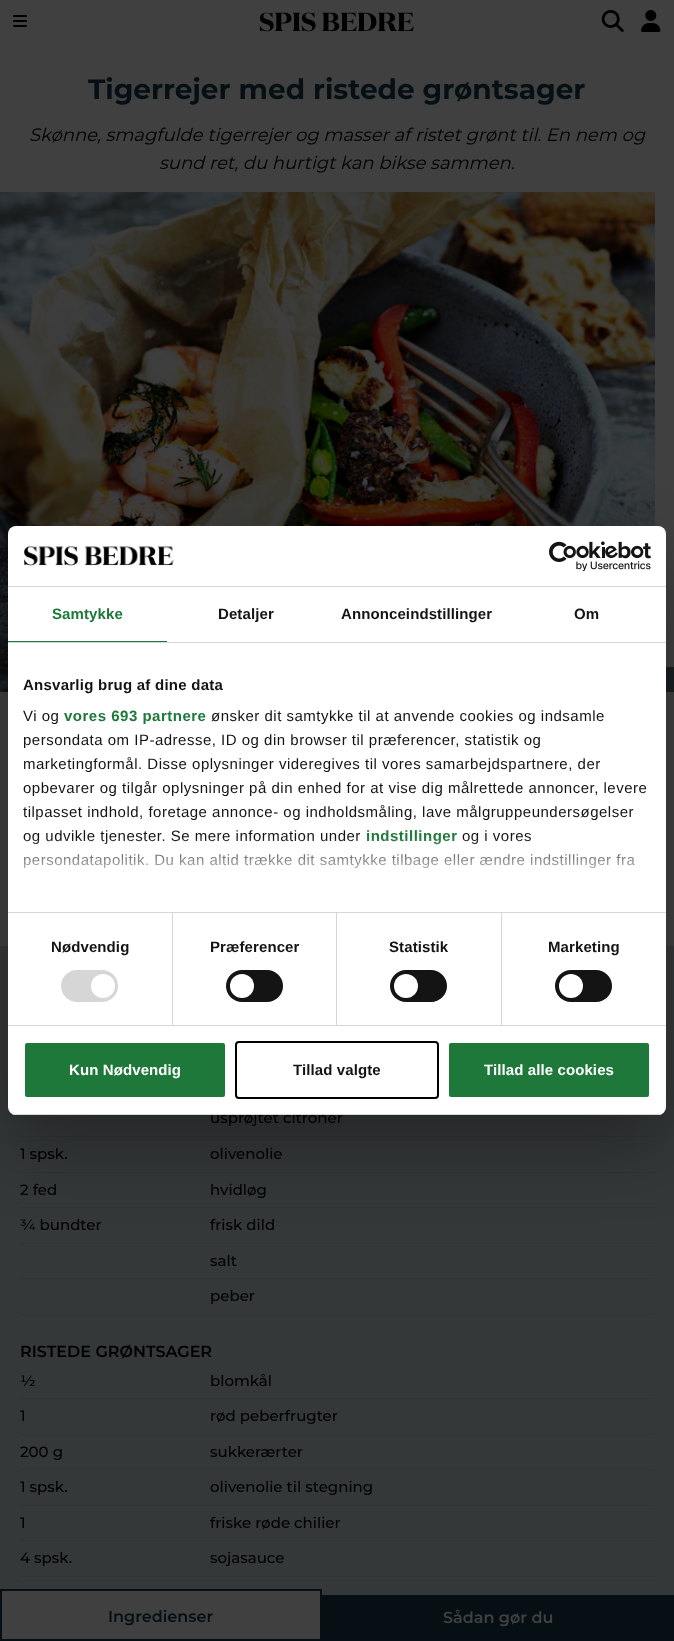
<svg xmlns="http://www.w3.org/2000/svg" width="674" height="1641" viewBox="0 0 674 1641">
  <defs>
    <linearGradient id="g1" gradientUnits="userSpaceOnUse" x1="331" y1="912" x2="331" y2="837"><stop offset="0" stop-color="rgb(255,255,255)"/><stop offset="0.5" stop-color="rgb(255,255,255)" stop-opacity="0.8"/><stop offset="1" stop-color="rgb(255,255,255)" stop-opacity="0"/></linearGradient>
    <clipPath id="clip1"><rect x="8" y="526" width="658" height="589" rx="8"/></clipPath>
  </defs>
  <rect width="100%" height="100%" fill="rgb(64,64,64)"/>
  <image x="13" y="15" width="14" height="12" href="pic1.png"/>
  <text x="259" y="31" font-family="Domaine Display" font-size="26" font-weight="bold" fill="rgb(0,0,0)">SPIS BEDRE</text>
  <image x="601" y="10" width="23" height="22" href="pic2.png"/>
  <image x="641" y="10" width="20" height="22" href="pic3.png"/>
  <text x="88" y="99" font-family="Montserrat" font-size="28" font-weight="bold" fill="rgb(6,16,20)">Tigerrejer med ristede grøntsager</text>
  <g font-family="Montserrat" font-size="18" font-style="italic" fill="rgb(0,0,0)">
    <text x="29" y="141">Skønne, smagfulde tigerrejer og masser af ristet grønt til. En nem og</text>
    <text x="159" y="169">sund ret, du hurtigt kan bikse sammen.</text>
  </g>
  <image x="0" y="192" width="655" height="500" href="pic4.png"/>
  <rect x="666" y="667" width="8" height="25" fill="rgba(20,27,31,0.9)"/>
  <rect x="0" y="946" width="674" height="649" fill="rgb(53,56,57)"/>
  <text x="210" y="1123" font-family="Montserrat" font-size="15" font-weight="500" fill="rgb(0,0,0)">usprøjtet citroner</text>
  <rect x="20" y="1136" width="634" height="1" fill="rgb(48,52,53)"/>
  <g font-family="Montserrat" font-size="15" font-weight="500" fill="rgb(0,0,0)">
    <text x="20" y="1159">1 spsk.</text>
    <text x="210" y="1159">olivenolie</text>
  </g>
  <rect x="20" y="1172" width="634" height="1" fill="rgb(48,52,53)"/>
  <g font-family="Montserrat" font-size="15" font-weight="500" fill="rgb(0,0,0)">
    <text x="20" y="1195">2 fed</text>
    <text x="210" y="1195">hvidløg</text>
  </g>
  <rect x="20" y="1207" width="634" height="1" fill="rgb(48,52,53)"/>
  <g font-family="Montserrat" font-size="15" font-weight="500" fill="rgb(0,0,0)">
    <text x="20" y="1230">¾ bundter</text>
    <text x="210" y="1230">frisk dild</text>
  </g>
  <rect x="20" y="1243" width="634" height="1" fill="rgb(48,52,53)"/>
  <text x="210" y="1266" font-family="Montserrat" font-size="15" font-weight="500" fill="rgb(0,0,0)">salt</text>
  <rect x="20" y="1278" width="634" height="1" fill="rgb(48,52,53)"/>
  <text x="210" y="1301" font-family="Montserrat" font-size="15" font-weight="500" fill="rgb(0,0,0)">peber</text>
  <rect x="20" y="1314" width="634" height="1" fill="rgb(48,52,53)"/>
  <text x="20" y="1357" font-family="Montserrat" font-size="16" font-weight="600" fill="rgb(0,0,0)">RISTEDE GRØNTSAGER</text>
  <g font-family="Montserrat" font-size="15" font-weight="500" fill="rgb(0,0,0)">
    <text x="20" y="1386">½</text>
    <text x="210" y="1386">blomkål</text>
  </g>
  <rect x="20" y="1398" width="634" height="1" fill="rgb(48,52,53)"/>
  <g font-family="Montserrat" font-size="15" font-weight="500" fill="rgb(0,0,0)">
    <text x="20" y="1421">1</text>
    <text x="210" y="1421">rød peberfrugter</text>
  </g>
  <rect x="20" y="1434" width="634" height="1" fill="rgb(48,52,53)"/>
  <g font-family="Montserrat" font-size="15" font-weight="500" fill="rgb(0,0,0)">
    <text x="20" y="1457">200 g</text>
    <text x="210" y="1457">sukkerærter</text>
  </g>
  <rect x="20" y="1469" width="634" height="1" fill="rgb(48,52,53)"/>
  <g font-family="Montserrat" font-size="15" font-weight="500" fill="rgb(0,0,0)">
    <text x="20" y="1492">1 spsk.</text>
    <text x="210" y="1492">olivenolie til stegning</text>
  </g>
  <rect x="20" y="1505" width="634" height="1" fill="rgb(48,52,53)"/>
  <g font-family="Montserrat" font-size="15" font-weight="500" fill="rgb(0,0,0)">
    <text x="20" y="1528">1</text>
    <text x="210" y="1528">friske røde chilier</text>
  </g>
  <rect x="20" y="1540" width="634" height="1" fill="rgb(48,52,53)"/>
  <g font-family="Montserrat" font-size="15" font-weight="500" fill="rgb(0,0,0)">
    <text x="20" y="1563">4 spsk.</text>
    <text x="210" y="1563">sojasauce</text>
  </g>
  <rect x="20" y="1576" width="634" height="1" fill="rgb(48,52,53)"/>
  <rect x="2" y="1591" width="318" height="4" fill="rgb(64,64,64)"/>
  <rect x="1" y="1590" width="320" height="50" fill="none" stroke="rgb(6,16,20)" stroke-width="2"/>
  <text x="108" y="1622" font-family="Montserrat" font-size="16" font-weight="600" fill="rgb(6,16,20)">Ingredienser</text>
  <rect x="322" y="1595" width="352" height="46" fill="rgb(6,16,20)"/>
  <text x="443" y="1623" font-family="Montserrat" font-size="16" font-weight="600" fill="rgb(64,64,64)">Sådan gør du</text>
  <rect x="8" y="558" width="658" height="589" rx="8" fill="rgba(0,0,0,0.3)" filter="blur(34px)"/>
  <rect x="8" y="526" width="658" height="589" rx="8" fill="rgb(255,255,255)"/>
  <rect x="8" y="586" width="658" height="1" fill="rgb(214,214,214)"/>
  <image x="23" y="546" width="151" height="20" href="pic5.png"/>
  <image x="549" y="541" width="102" height="30" href="pic6.png"/>
  <rect x="8" y="642" width="658" height="1" fill="rgb(214,214,214)"/>
  <rect x="8" y="641" width="159" height="1" fill="rgb(29,120,58)"/>
  <text x="52" y="619" font-family="Liberation Sans" font-size="15" font-weight="bold" letter-spacing="0.1" fill="rgb(29,120,58)">Samtykke</text>
  <g font-family="Liberation Sans" font-size="15" font-weight="bold" letter-spacing="0.1" fill="rgb(20,20,20)">
    <text x="218" y="619">Detaljer</text>
    <text x="341" y="619">Annonceindstillinger</text>
    <text x="574" y="619">Om</text>
  </g>
  <rect x="8" y="912" width="658" height="1" fill="rgb(214,214,214)"/>
  <text x="23" y="690" font-family="Liberation Sans" font-size="15" font-weight="bold" letter-spacing="0.25" fill="rgb(20,20,20)">Ansvarlig brug af dine data</text>
  <text x="23" y="721" font-family="Liberation Sans" font-size="15" letter-spacing="0.5" fill="rgb(20,20,20)">Vi og</text>
  <text x="64" y="721" font-family="Liberation Sans" font-size="15" font-weight="bold" letter-spacing="0.5" fill="rgb(29,120,58)">vores 693 partnere</text>
  <g font-family="Liberation Sans" font-size="15" letter-spacing="0.5" fill="rgb(20,20,20)">
    <text x="211" y="721">ønsker dit samtykke til at anvende cookies og indsamle</text>
    <text>
      <tspan x="23" y="745">persondata om IP-adresse, ID og din browser til præferencer, statistik og</tspan>
      <tspan x="23" y="769">marketingformål. Disse oplysninger videregives til vores samarbejdspartnere, der</tspan>
      <tspan x="23" y="793">opbevarer og tilgår oplysninger på din enhed for at vise dig målrettede annoncer, levere</tspan>
      <tspan x="23" y="817">tilpasset indhold, foretage annonce- og indholdsmåling, lave målgruppeundersøgelser</tspan>
      <tspan x="23" y="841">og udvikle tjenester. Se mere information under</tspan>
    </text>
  </g>
  <text x="366" y="841" font-family="Liberation Sans" font-size="15" font-weight="bold" letter-spacing="0.5" fill="rgb(29,120,58)">indstillinger</text>
  <g font-family="Liberation Sans" font-size="15" letter-spacing="0.5" fill="rgb(20,20,20)">
    <text x="462" y="841">og i vores</text>
    <text x="23" y="865">persondatapolitik. Du kan altid trække dit samtykke tilbage eller ændre indstillinger fra</text>
  </g>
  <rect x="24" y="838" width="611" height="31" fill="url(#g1)"/>
  <rect x="8" y="1025" width="658" height="1" fill="rgb(214,214,214)"/>
  <rect x="172" y="913" width="1" height="112" fill="rgb(214,214,214)"/>
  <text x="51" y="952" font-family="Liberation Sans" font-size="15" font-weight="bold" letter-spacing="0.1" fill="rgb(20,20,20)">Nødvendig</text>
  <rect x="61" y="970" width="57" height="32" rx="16" fill="rgb(214,214,214)"/>
  <circle cx="103" cy="986" r="12" fill="rgb(255,255,255)"/>
  <rect x="336" y="913" width="1" height="112" fill="rgb(214,214,214)"/>
  <text x="210" y="952" font-family="Liberation Sans" font-size="15" font-weight="bold" letter-spacing="0.1" fill="rgb(20,20,20)">Præferencer</text>
  <rect x="226" y="970" width="57" height="32" rx="16" fill="rgb(20,20,20)"/>
  <circle cx="242" cy="986" r="12" fill="rgb(255,255,255)"/>
  <rect x="501" y="913" width="1" height="112" fill="rgb(214,214,214)"/>
  <text x="389" y="952" font-family="Liberation Sans" font-size="15" font-weight="bold" letter-spacing="0.1" fill="rgb(20,20,20)">Statistik</text>
  <rect x="390" y="970" width="57" height="32" rx="16" fill="rgb(20,20,20)"/>
  <circle cx="406" cy="986" r="12" fill="rgb(255,255,255)"/>
  <text x="548" y="952" font-family="Liberation Sans" font-size="15" font-weight="bold" letter-spacing="0.1" fill="rgb(20,20,20)">Marketing</text>
  <rect x="555" y="970" width="57" height="32" rx="16" fill="rgb(20,20,20)"/>
  <circle cx="571" cy="986" r="12" fill="rgb(255,255,255)"/>
  <g clip-path="url(#clip1)">
    <rect x="8" y="1114" width="658" height="1" fill="rgb(214,214,214)"/>
  </g>
  <rect x="24" y="1042" width="202" height="56" rx="3" fill="rgb(29,120,58)" stroke="rgb(255,255,255)" stroke-width="2"/>
  <text x="69" y="1075" font-family="Liberation Sans" font-size="15" font-weight="bold" letter-spacing="0.1" fill="rgb(255,255,255)">Kun Nødvendig</text>
  <rect x="236" y="1042" width="202" height="56" rx="3" fill="none" stroke="rgb(0,0,0)" stroke-width="2"/>
  <text x="293" y="1075" font-family="Liberation Sans" font-size="15" font-weight="bold" letter-spacing="0.1" fill="rgb(20,20,20)">Tillad valgte</text>
  <rect x="448" y="1042" width="202" height="56" rx="3" fill="rgb(29,120,58)" stroke="rgb(255,255,255)" stroke-width="2"/>
  <text x="484" y="1075" font-family="Liberation Sans" font-size="15" font-weight="bold" letter-spacing="0.1" fill="rgb(255,255,255)">Tillad alle cookies</text>
</svg>
